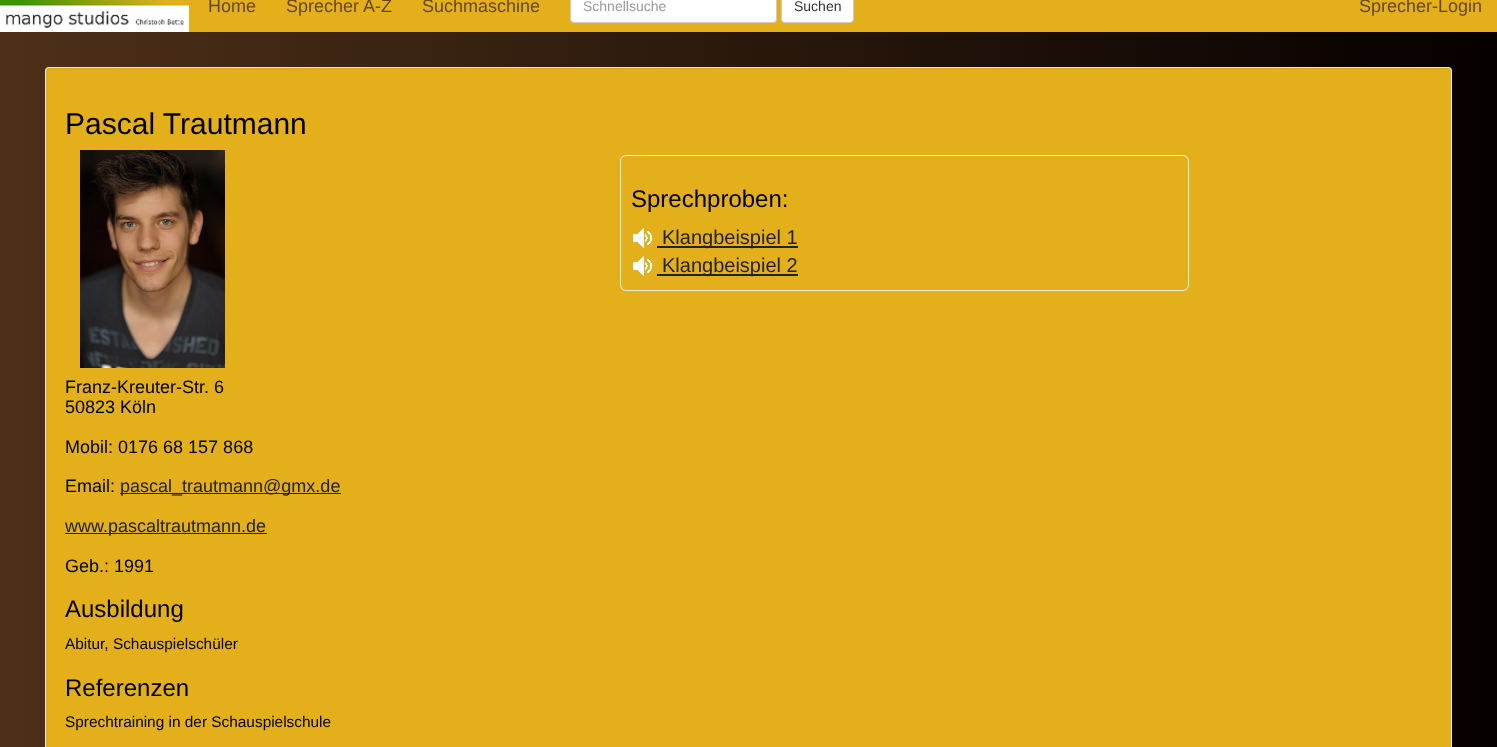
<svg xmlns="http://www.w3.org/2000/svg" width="1497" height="747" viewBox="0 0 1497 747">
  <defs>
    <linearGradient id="g1" gradientUnits="userSpaceOnUse" x1="0" y1="424" x2="1497" y2="424"><stop offset="0" stop-color="rgb(78,48,24)"/><stop offset="1" stop-color="rgb(6,0,0)"/></linearGradient>
  </defs>
  <rect width="100%" height="100%" fill="rgb(255,255,255)"/>
  <rect x="0" y="32" width="1497" height="715" fill="url(#g1)"/>
  <image x="0" y="0" width="189" height="32" href="pic1.png"/>
  <rect x="189" y="0" width="1308" height="32" fill="rgb(227,175,27)"/>
  <g font-family="Liberation Sans" font-size="18" fill="rgb(102,72,24)">
    <text x="208" y="12">Home</text>
    <text x="286" y="12">Sprecher A-Z</text>
    <text x="422" y="12">Suchmaschine</text>
  </g>
  <rect x="570.5" y="-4.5" width="206" height="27" rx="3.5" fill="rgb(255,255,255)" stroke="rgb(204,204,204)"/>
  <text x="583" y="11" font-family="Liberation Sans" font-size="14" fill="rgb(153,153,153)">Schnellsuche</text>
  <rect x="781.5" y="-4.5" width="72" height="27" rx="3.5" fill="rgb(255,255,255)" stroke="rgb(204,204,204)"/>
  <text x="794" y="11" font-family="Liberation Sans" font-size="14" fill="rgb(51,51,51)">Suchen</text>
  <text x="1359" y="12" font-family="Liberation Sans" font-size="18" fill="rgb(102,72,24)">Sprecher-Login</text>
  <rect x="45" y="67" width="1407" height="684" rx="4" fill="rgb(227,175,27)"/>
  <path d="M49 69H1448C1450 69 1451 70 1451 72V71C1451 69 1450 68 1448 68H49C47 68 46 69 46 71V72C46 70 47 69 49 69Z" fill="rgb(216,166,26)"/>
  <rect x="45.5" y="67.5" width="1406" height="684" rx="3.5" fill="none" stroke="rgb(227,227,227)"/>
  <text x="65" y="134" font-family="Liberation Sans" font-size="30" fill="rgb(0,0,0)">Pascal Trautmann</text>
  <image x="80" y="150" width="145" height="218" href="pic2.png"/>
  <rect x="620.5" y="155.5" width="568" height="135" rx="5.5" fill="none" stroke="rgb(238,238,238)"/>
  <text x="631" y="207" font-family="Liberation Sans" font-size="24" fill="rgb(0,0,0)">Sprechproben:</text>
  <image x="633" y="228" width="19" height="20" href="pic3.png"/>
  <rect x="657" y="246" width="141" height="2" fill="rgb(34,34,34)"/>
  <text x="662" y="244" font-family="Liberation Sans" font-size="20" fill="rgb(34,34,34)">Klangbeispiel 1</text>
  <image x="633" y="256" width="19" height="20" href="pic3.png"/>
  <rect x="657" y="274" width="141" height="2" fill="rgb(34,34,34)"/>
  <text x="662" y="272" font-family="Liberation Sans" font-size="20" fill="rgb(34,34,34)">Klangbeispiel 2</text>
  <g font-family="Liberation Sans" font-size="18" fill="rgb(0,0,0)">
    <text>
      <tspan x="65" y="393">Franz-Kreuter-Str. 6</tspan>
      <tspan x="65" y="413">50823 Köln</tspan>
    </text>
    <text x="65" y="453">Mobil: 0176 68 157 868</text>
    <text x="65" y="492">Email:</text>
  </g>
  <rect x="120" y="493" width="221" height="1" fill="rgb(34,34,34)"/>
  <text x="120" y="492" font-family="Liberation Sans" font-size="18" fill="rgb(34,34,34)">pascal_trautmann@gmx.de</text>
  <rect x="65" y="533" width="202" height="1" fill="rgb(34,34,34)"/>
  <text x="65" y="532" font-family="Liberation Sans" font-size="18" fill="rgb(34,34,34)">www.pascaltrautmann.de</text>
  <text x="65" y="572" font-family="Liberation Sans" font-size="18" fill="rgb(0,0,0)">Geb.: 1991</text>
  <text x="65" y="617" font-family="Liberation Sans" font-size="24" fill="rgb(0,0,0)">Ausbildung</text>
  <text x="65" y="649" font-family="Liberation Sans" font-size="15.4" fill="rgb(0,0,0)">Abitur, Schauspielschüler</text>
  <text x="65" y="696" font-family="Liberation Sans" font-size="24" fill="rgb(0,0,0)">Referenzen</text>
  <text x="65" y="727" font-family="Liberation Sans" font-size="15.4" fill="rgb(0,0,0)">Sprechtraining in der Schauspielschule</text>
</svg>
